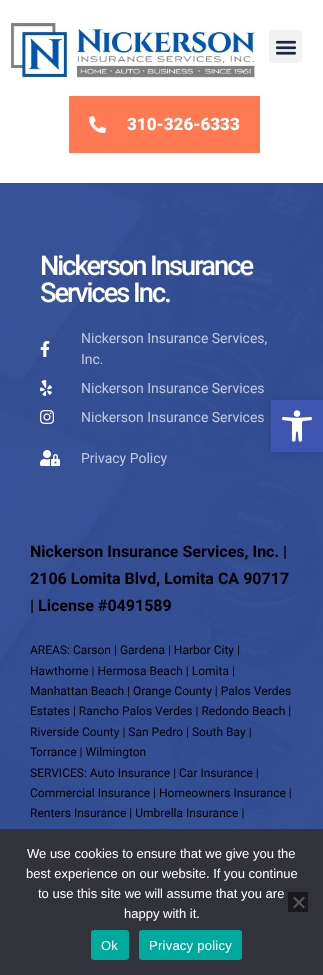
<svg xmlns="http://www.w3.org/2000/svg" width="323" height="975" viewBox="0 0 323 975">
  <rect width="100%" height="100%" fill="rgb(255,255,255)"/>
  <image x="10" y="23" width="246" height="55" href="pic1.png"/>
  <rect x="269" y="30" width="33" height="33" rx="3" fill="rgb(242,242,242)"/>
  <image x="275" y="40" width="22" height="15" href="pic2.png"/>
  <rect x="69" y="96" width="191" height="57" fill="rgb(255,122,83)"/>
  <image x="89" y="116" width="17" height="18" href="pic3.png"/>
  <text x="127" y="130" font-family="Heebo" font-size="17" font-weight="800" fill="rgb(255,255,255)">310-326-6333</text>
  <image x="0" y="183" width="323" height="646" href="pic4.png"/>
  <g font-family="Roboto" font-size="27.25" font-weight="500" letter-spacing="-2" fill="rgb(255,255,255)">
    <text>
      <tspan x="40" y="275">Nickerson Insurance</tspan>
      <tspan x="40" y="302">Services Inc.</tspan>
    </text>
  </g>
  <image x="40" y="341" width="10" height="16" href="pic5.png"/>
  <g font-family="Roboto" font-size="14" fill="rgb(194,202,223)">
    <text>
      <tspan x="81" y="343">Nickerson Insurance Services,</tspan>
      <tspan x="81" y="364">Inc.</tspan>
    </text>
  </g>
  <image x="40" y="380" width="12" height="16" href="pic6.png"/>
  <text x="81" y="393" font-family="Roboto" font-size="14" fill="rgb(194,202,223)">Nickerson Insurance Services</text>
  <image x="40" y="410" width="14" height="14" href="pic7.png"/>
  <text x="81" y="422" font-family="Roboto" font-size="14" fill="rgb(194,202,223)">Nickerson Insurance Services</text>
  <image x="40" y="450" width="20" height="16" href="pic8.png"/>
  <text x="81" y="463" font-family="Roboto" font-size="14" fill="rgb(194,202,223)">Privacy Policy</text>
  <g font-family="Heebo" font-size="16" font-weight="bold" fill="rgb(0,0,0)">
    <text>
      <tspan x="30" y="557">Nickerson Insurance Services, Inc. |</tspan>
      <tspan x="30" y="584">2106 Lomita Blvd, Lomita CA 90717</tspan>
      <tspan x="30" y="611">| License #0491589</tspan>
    </text>
  </g>
  <g font-family="Heebo" font-size="12" fill="rgb(0,0,0)">
    <text>
      <tspan x="30" y="654">AREAS: Carson | Gardena | Harbor City |</tspan>
      <tspan x="30" y="675">Hawthorne | Hermosa Beach | Lomita |</tspan>
      <tspan x="30" y="695">Manhattan Beach | Orange County | Palos Verdes</tspan>
      <tspan x="30" y="715">Estates | Rancho Palos Verdes | Redondo Beach |</tspan>
      <tspan x="30" y="736">Riverside County | San Pedro | South Bay |</tspan>
      <tspan x="30" y="756">Torrance | Wilmington</tspan>
      <tspan x="30" y="777">SERVICES: Auto Insurance | Car Insurance |</tspan>
      <tspan x="30" y="797">Commercial Insurance | Homeowners Insurance |</tspan>
      <tspan x="30" y="817">Renters Insurance | Umbrella Insurance |</tspan>
    </text>
  </g>
  <rect x="271" y="400" width="52" height="52" fill="rgba(0,0,0,0.1)" filter="blur(5px)"/>
  <rect x="271" y="400" width="52" height="52" fill="rgb(64,84,178)"/>
  <image x="282" y="410" width="30" height="32" href="pic9.png"/>
  <rect x="0" y="829" width="323" height="146" fill="rgb(50,50,58)"/>
  <g font-family="Liberation Sans" font-size="13" fill="rgb(255,255,255)">
    <text x="27" y="858">We use cookies to ensure that we give you the</text>
    <text x="26" y="878">best experience on our website. If you continue</text>
    <text x="38" y="898">to use this site we will assume that you are</text>
    <text x="124" y="918">happy with it.</text>
  </g>
  <rect x="288" y="892" width="20" height="20" fill="rgb(25,25,29)"/>
  <path d="M303.5 896.5L305 898L294.5 908.5L293 907Z" fill="rgb(89,89,93)"/>
  <path d="M293 898L294.5 896.5L305 907L303.5 908.5Z" fill="rgb(89,89,93)"/>
  <rect x="91" y="930" width="38" height="30" rx="3" fill="rgb(0,169,157)"/>
  <text x="101" y="950" font-family="Liberation Sans" font-size="13" letter-spacing="0.25" fill="rgb(255,255,255)">Ok</text>
  <rect x="139" y="930" width="103" height="30" rx="3" fill="rgb(0,169,157)"/>
  <text x="149" y="950" font-family="Liberation Sans" font-size="13" letter-spacing="0.25" fill="rgb(255,255,255)">Privacy policy</text>
</svg>
